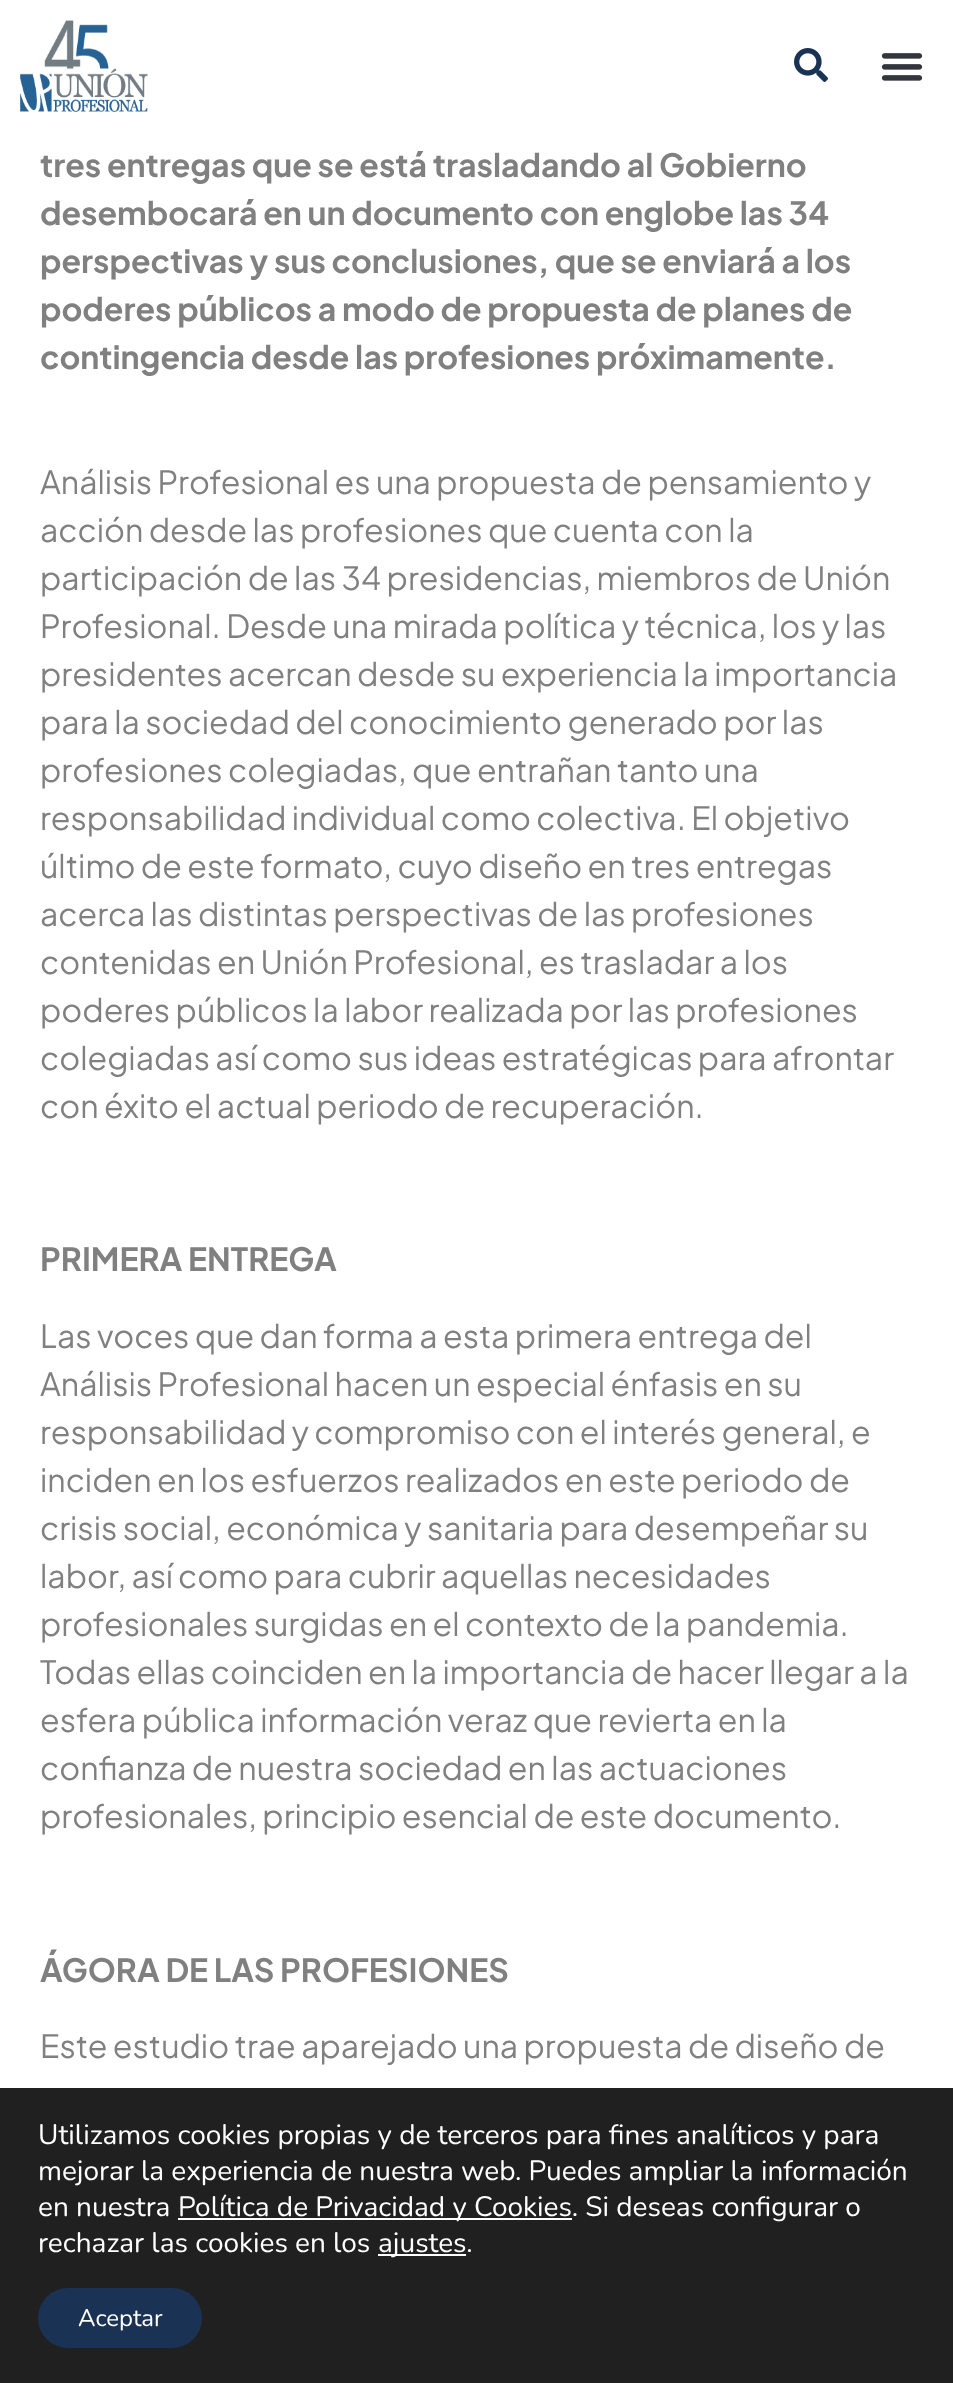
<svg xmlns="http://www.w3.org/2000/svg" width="953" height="2383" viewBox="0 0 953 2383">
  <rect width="100%" height="100%" fill="rgb(255,255,255)"/>
  <image x="20" y="20" width="128" height="92" href="pic1.png"/>
  <image x="794" y="48" width="34" height="34" href="pic2.png"/>
  <image x="881" y="53" width="42" height="28" href="pic3.png"/>
  <g font-family="Plus Jakarta Sans" font-size="32" font-weight="bold" fill="rgb(128,128,128)">
    <text>
      <tspan x="40" y="177">tres entregas que se está trasladando al Gobierno</tspan>
      <tspan x="40" y="225">desembocará en un documento con englobe las 34</tspan>
      <tspan x="40" y="273">perspectivas y sus conclusiones, que se enviará a los</tspan>
      <tspan x="40" y="321">poderes públicos a modo de propuesta de planes de</tspan>
      <tspan x="40" y="369">contingencia desde las profesiones próximamente.</tspan>
    </text>
  </g>
  <g font-family="Plus Jakarta Sans" font-size="32" fill="rgb(128,128,128)">
    <text>
      <tspan x="40" y="494">Análisis Profesional es una propuesta de pensamiento y</tspan>
      <tspan x="40" y="542">acción desde las profesiones que cuenta con la</tspan>
      <tspan x="40" y="590">participación de las 34 presidencias, miembros de Unión</tspan>
      <tspan x="40" y="638">Profesional. Desde una mirada política y técnica, los y las</tspan>
      <tspan x="40" y="686">presidentes acercan desde su experiencia la importancia</tspan>
      <tspan x="40" y="734">para la sociedad del conocimiento generado por las</tspan>
      <tspan x="40" y="782">profesiones colegiadas, que entrañan tanto una</tspan>
      <tspan x="40" y="830">responsabilidad individual como colectiva. El objetivo</tspan>
      <tspan x="40" y="878">último de este formato, cuyo diseño en tres entregas</tspan>
      <tspan x="40" y="926">acerca las distintas perspectivas de las profesiones</tspan>
      <tspan x="40" y="974">contenidas en Unión Profesional, es trasladar a los</tspan>
      <tspan x="40" y="1022">poderes públicos la labor realizada por las profesiones</tspan>
      <tspan x="40" y="1070">colegiadas así como sus ideas estratégicas para afrontar</tspan>
      <tspan x="40" y="1118">con éxito el actual periodo de recuperación.</tspan>
    </text>
  </g>
  <text x="40" y="1271" font-family="Plus Jakarta Sans" font-size="32" font-weight="bold" fill="rgb(128,128,128)">PRIMERA ENTREGA</text>
  <g font-family="Plus Jakarta Sans" font-size="32" fill="rgb(128,128,128)">
    <text>
      <tspan x="40" y="1348">Las voces que dan forma a esta primera entrega del</tspan>
      <tspan x="40" y="1396">Análisis Profesional hacen un especial énfasis en su</tspan>
      <tspan x="40" y="1444">responsabilidad y compromiso con el interés general, e</tspan>
      <tspan x="40" y="1492">inciden en los esfuerzos realizados en este periodo de</tspan>
      <tspan x="40" y="1540">crisis social, económica y sanitaria para desempeñar su</tspan>
      <tspan x="40" y="1588">labor, así como para cubrir aquellas necesidades</tspan>
      <tspan x="40" y="1636">profesionales surgidas en el contexto de la pandemia.</tspan>
      <tspan x="40" y="1684">Todas ellas coinciden en la importancia de hacer llegar a la</tspan>
      <tspan x="40" y="1732">esfera pública información veraz que revierta en la</tspan>
      <tspan x="40" y="1780">confianza de nuestra sociedad en las actuaciones</tspan>
      <tspan x="40" y="1828">profesionales, principio esencial de este documento.</tspan>
    </text>
  </g>
  <text x="40" y="1982" font-family="Plus Jakarta Sans" font-size="32" font-weight="bold" fill="rgb(128,128,128)">ÁGORA DE LAS PROFESIONES</text>
  <text x="40" y="2058" font-family="Plus Jakarta Sans" font-size="32" fill="rgb(128,128,128)">Este estudio trae aparejado una propuesta de diseño de</text>
  <rect x="0" y="2088" width="953" height="295" fill="rgb(32,32,32)"/>
  <g font-family="Nunito" font-size="28" fill="rgb(255,255,255)">
    <text>
      <tspan x="38" y="2144">Utilizamos cookies propias y de terceros para fines analíticos y para</tspan>
      <tspan x="38" y="2180">mejorar la experiencia de nuestra web. Puedes ampliar la información</tspan>
      <tspan x="38" y="2216">en nuestra</tspan>
    </text>
  </g>
  <rect x="178" y="2218" width="394" height="2" fill="rgb(255,255,255)"/>
  <g font-family="Nunito" font-size="28" fill="rgb(255,255,255)">
    <text x="178" y="2216">Política de Privacidad y Cookies. Si deseas configurar o</text>
    <text x="38" y="2252">rechazar las cookies en los</text>
  </g>
  <rect x="378" y="2254" width="88" height="2" fill="rgb(255,255,255)"/>
  <text x="378" y="2252" font-family="Nunito" font-size="28" fill="rgb(255,255,255)">ajustes.</text>
  <rect x="38" y="2288" width="164" height="60" rx="30" fill="rgb(26,50,84)"/>
  <text x="78" y="2326" font-family="Nunito" font-size="24" fill="rgb(255,255,255)">Aceptar</text>
</svg>
